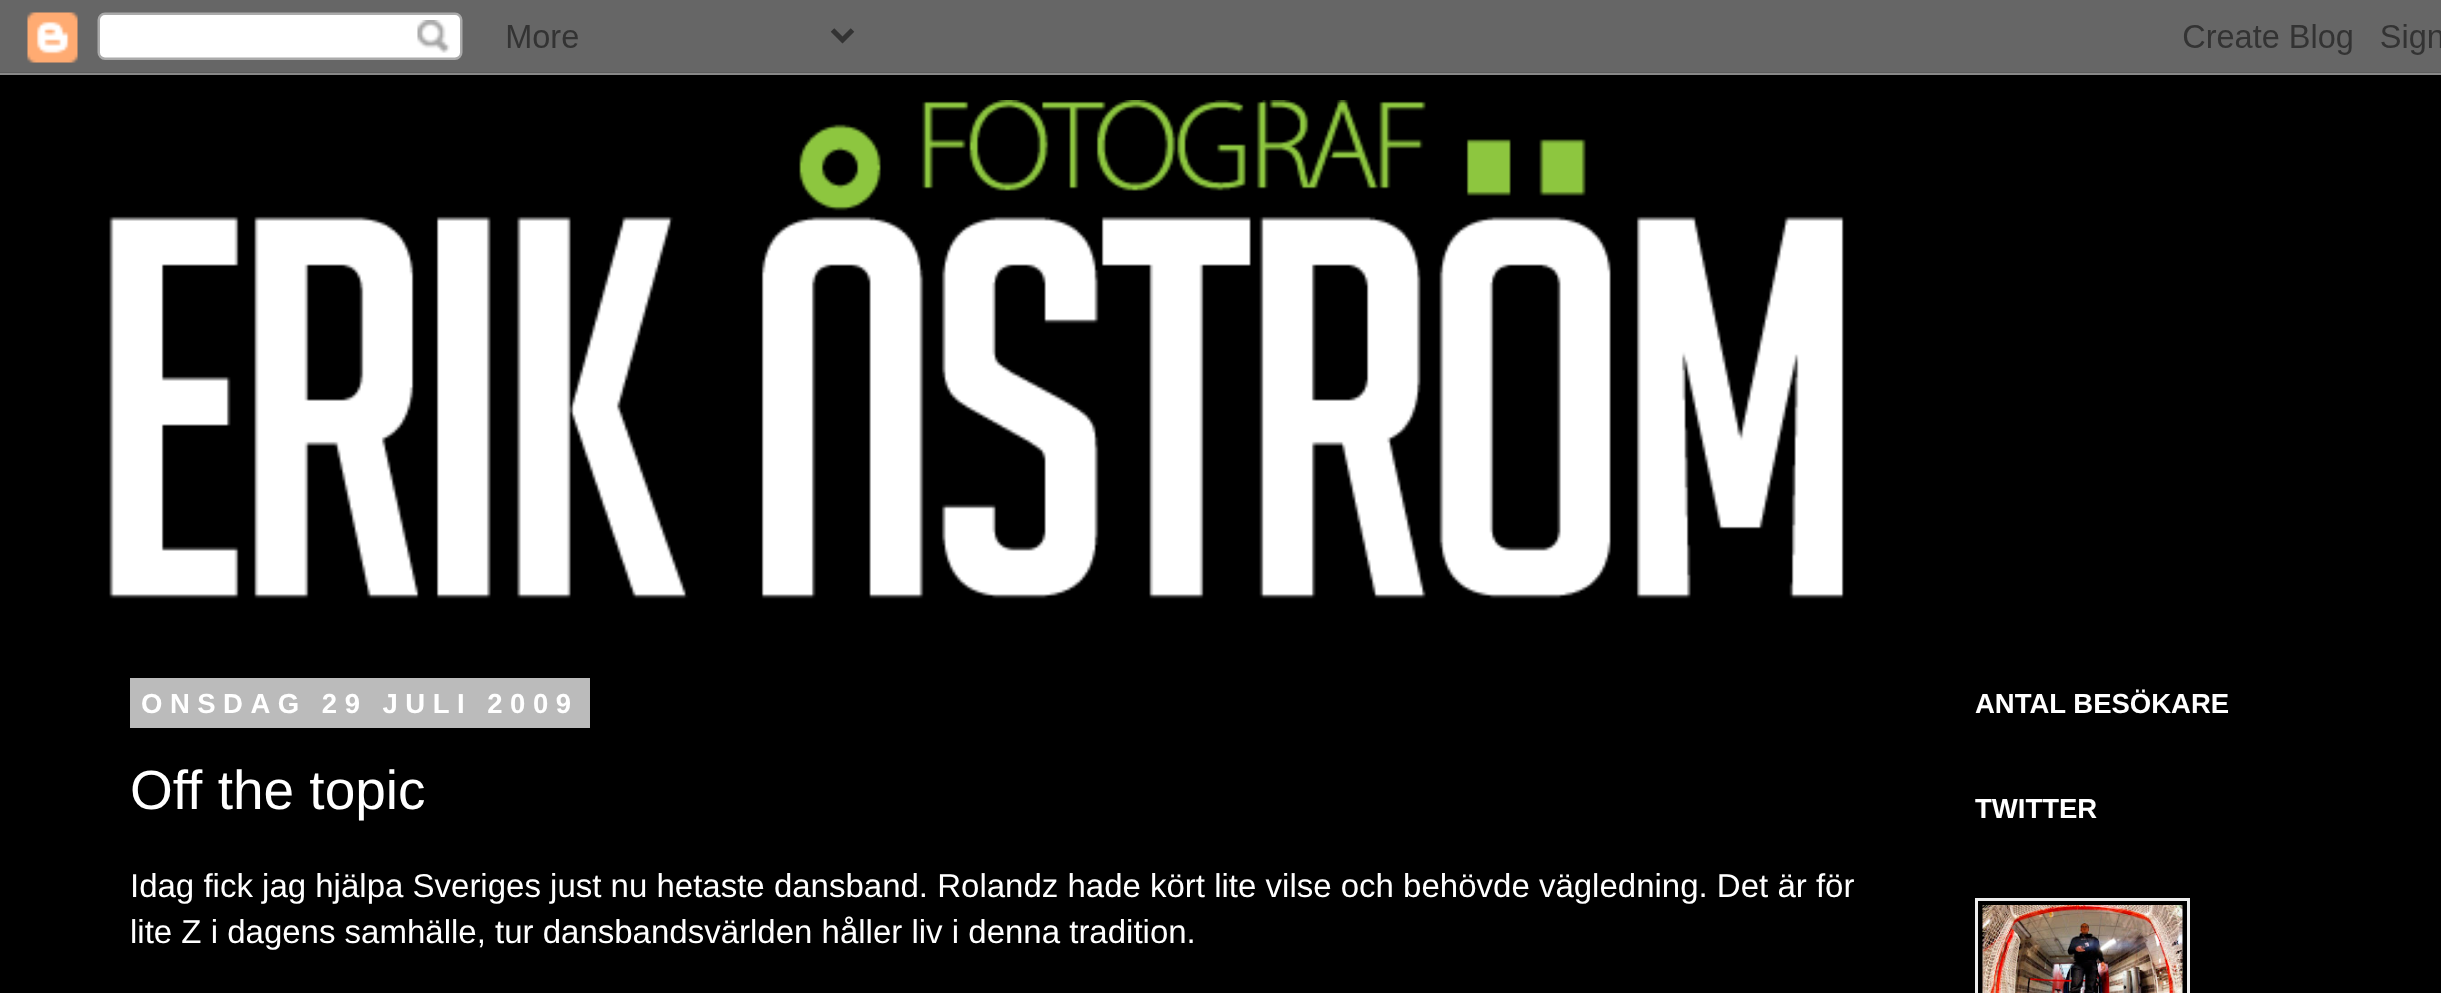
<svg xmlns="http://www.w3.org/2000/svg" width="2441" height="993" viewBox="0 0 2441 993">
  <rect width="100%" height="100%" fill="rgb(0,0,0)"/>
  <image x="0" y="0" width="2441" height="75" href="pic1.png"/>
  <image x="109" y="100" width="1735" height="499" href="pic2.png"/>
  <rect x="130" y="678" width="460" height="50" fill="rgb(187,187,187)"/>
  <text x="141" y="713" font-family="Liberation Sans" font-size="27.5" font-weight="bold" letter-spacing="7.5" fill="rgb(255,255,255)">ONSDAG 29 JULI 2009</text>
  <text x="130" y="809" font-family="Liberation Sans" font-size="55" fill="rgb(255,255,255)">Off the topic</text>
  <g font-family="Liberation Sans" font-size="33" fill="rgb(255,255,255)">
    <text>
      <tspan x="130" y="897">Idag fick jag hjälpa Sveriges just nu hetaste dansband. Rolandz hade kört lite vilse och behövde vägledning. Det är för</tspan>
      <tspan x="130" y="943">lite Z i dagens samhälle, tur dansbandsvärlden håller liv i denna tradition.</tspan>
    </text>
  </g>
  <g font-family="Liberation Sans" font-size="27.5" font-weight="bold" fill="rgb(255,255,255)">
    <text x="1975" y="713">ANTAL BESÖKARE</text>
    <text x="1975" y="818">TWITTER</text>
  </g>
  <rect x="1976.5" y="899.5" width="212" height="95" fill="none" stroke="rgb(238,238,238)" stroke-width="3"/>
  <image x="1982" y="905" width="201" height="88" href="pic3.png"/>
</svg>
